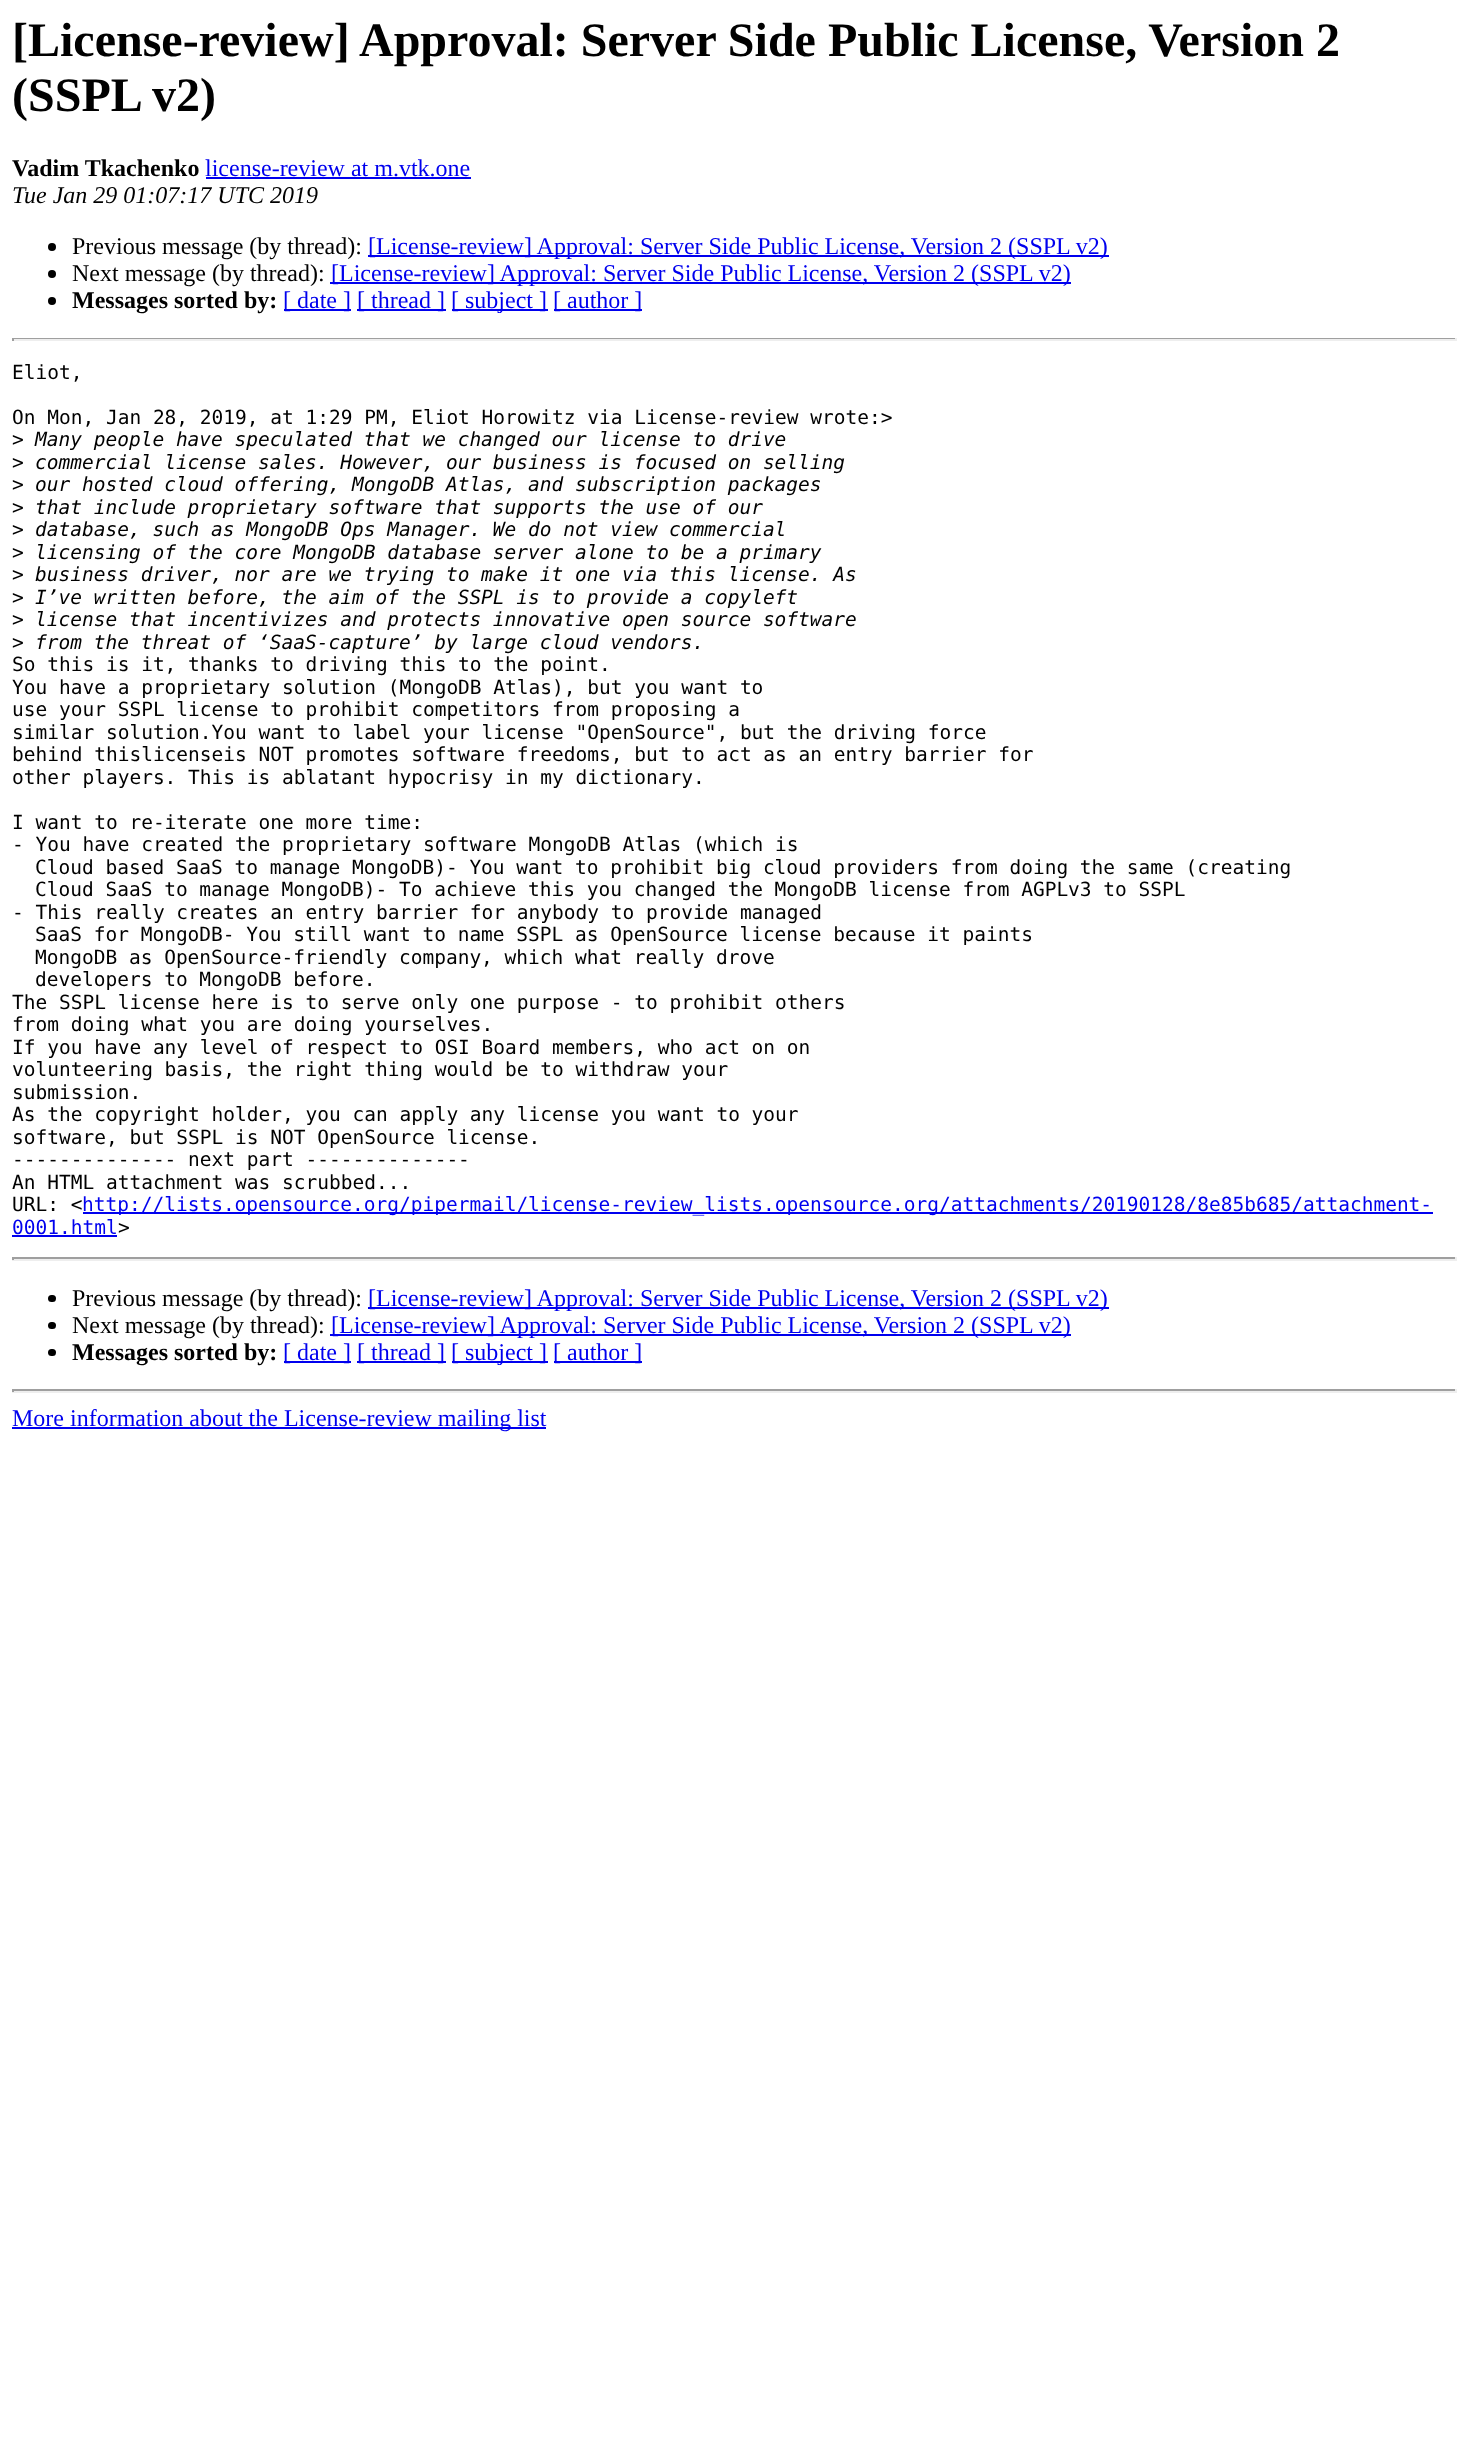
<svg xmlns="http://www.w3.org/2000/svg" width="1468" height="2451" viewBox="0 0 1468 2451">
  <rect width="100%" height="100%" fill="rgb(255,255,255)"/>
  <g font-family="Liberation Serif" font-size="48" font-weight="bold" fill="rgb(0,0,0)">
    <text>
      <tspan x="12" y="56">[License-review] Approval: Server Side Public License, Version 2</tspan>
      <tspan x="12" y="111">(SSPL v2)</tspan>
    </text>
  </g>
  <text x="12" y="176" font-family="Liberation Serif" font-size="24" font-weight="bold" fill="rgb(0,0,0)">Vadim Tkachenko</text>
  <text x="205" y="176" font-family="Liberation Serif" font-size="24" fill="rgb(0,0,238)">license-review at m.vtk.one</text>
  <rect x="206" y="177" width="265" height="2" fill="rgb(0,0,238)"/>
  <text x="12" y="203" font-family="Liberation Serif" font-size="24" font-style="italic" fill="rgb(0,0,0)">Tue Jan 29 01:07:17 UTC 2019</text>
  <circle cx="52" cy="247" r="4" fill="rgb(0,0,0)"/>
  <text x="72" y="254" font-family="Liberation Serif" font-size="24" fill="rgb(0,0,0)">Previous message (by thread):</text>
  <rect x="368" y="255" width="741" height="2" fill="rgb(0,0,238)"/>
  <text x="368" y="254" font-family="Liberation Serif" font-size="24" fill="rgb(0,0,238)">[License-review] Approval: Server Side Public License, Version 2 (SSPL v2)</text>
  <circle cx="52" cy="274" r="4" fill="rgb(0,0,0)"/>
  <text x="72" y="281" font-family="Liberation Serif" font-size="24" fill="rgb(0,0,0)">Next message (by thread):</text>
  <rect x="330" y="282" width="741" height="2" fill="rgb(0,0,238)"/>
  <text x="331" y="281" font-family="Liberation Serif" font-size="24" fill="rgb(0,0,238)">[License-review] Approval: Server Side Public License, Version 2 (SSPL v2)</text>
  <circle cx="52" cy="301" r="4" fill="rgb(0,0,0)"/>
  <text x="72" y="308" font-family="Liberation Serif" font-size="24" font-weight="bold" fill="rgb(0,0,0)">Messages sorted by:</text>
  <rect x="284" y="309" width="67" height="2" fill="rgb(0,0,238)"/>
  <text x="283" y="308" font-family="Liberation Serif" font-size="24" fill="rgb(0,0,238)">[ date ]</text>
  <rect x="357" y="309" width="89" height="2" fill="rgb(0,0,238)"/>
  <text x="357" y="308" font-family="Liberation Serif" font-size="24" fill="rgb(0,0,238)">[ thread ]</text>
  <rect x="452" y="309" width="96" height="2" fill="rgb(0,0,238)"/>
  <text x="451" y="308" font-family="Liberation Serif" font-size="24" fill="rgb(0,0,238)">[ subject ]</text>
  <rect x="554" y="309" width="88" height="2" fill="rgb(0,0,238)"/>
  <text x="553" y="308" font-family="Liberation Serif" font-size="24" fill="rgb(0,0,238)">[ author ]</text>
  <rect x="12" y="338" width="1445" height="1" fill="rgb(159,159,159)"/>
  <rect x="1455" y="338" width="2" height="3" fill="rgb(238,238,238)"/>
  <rect x="12" y="339" width="1445" height="2" fill="rgb(238,238,238)"/>
  <rect x="12" y="338" width="2" height="3" fill="rgb(159,159,159)"/>
  <g font-family="DejaVu Sans Mono" font-size="19.5" fill="rgb(0,0,0)">
    <text x="12" y="379">Eliot,</text>
    <text>
      <tspan x="12" y="424">On Mon, Jan 28, 2019, at 1:29 PM, Eliot Horowitz via License-review wrote:&gt;</tspan>
      <tspan x="12" y="446">&gt;</tspan>
    </text>
  </g>
  <text x="35" y="446" font-family="DejaVu Sans Mono" font-size="19.5" font-style="italic" fill="rgb(0,0,0)">Many people have speculated that we changed our license to drive</text>
  <text x="12" y="469" font-family="DejaVu Sans Mono" font-size="19.5" fill="rgb(0,0,0)">&gt;</text>
  <text x="35" y="469" font-family="DejaVu Sans Mono" font-size="19.5" font-style="italic" fill="rgb(0,0,0)">commercial license sales. However, our business is focused on selling</text>
  <text x="12" y="491" font-family="DejaVu Sans Mono" font-size="19.5" fill="rgb(0,0,0)">&gt;</text>
  <text x="35" y="491" font-family="DejaVu Sans Mono" font-size="19.5" font-style="italic" fill="rgb(0,0,0)">our hosted cloud offering, MongoDB Atlas, and subscription packages</text>
  <text x="12" y="514" font-family="DejaVu Sans Mono" font-size="19.5" fill="rgb(0,0,0)">&gt;</text>
  <text x="35" y="514" font-family="DejaVu Sans Mono" font-size="19.5" font-style="italic" fill="rgb(0,0,0)">that include proprietary software that supports the use of our</text>
  <text x="12" y="536" font-family="DejaVu Sans Mono" font-size="19.5" fill="rgb(0,0,0)">&gt;</text>
  <text x="35" y="536" font-family="DejaVu Sans Mono" font-size="19.5" font-style="italic" fill="rgb(0,0,0)">database, such as MongoDB Ops Manager. We do not view commercial</text>
  <text x="12" y="559" font-family="DejaVu Sans Mono" font-size="19.5" fill="rgb(0,0,0)">&gt;</text>
  <text x="35" y="559" font-family="DejaVu Sans Mono" font-size="19.5" font-style="italic" fill="rgb(0,0,0)">licensing of the core MongoDB database server alone to be a primary</text>
  <text x="12" y="581" font-family="DejaVu Sans Mono" font-size="19.5" fill="rgb(0,0,0)">&gt;</text>
  <text x="35" y="581" font-family="DejaVu Sans Mono" font-size="19.5" font-style="italic" fill="rgb(0,0,0)">business driver, nor are we trying to make it one via this license. As</text>
  <text x="12" y="604" font-family="DejaVu Sans Mono" font-size="19.5" fill="rgb(0,0,0)">&gt;</text>
  <text x="35" y="604" font-family="DejaVu Sans Mono" font-size="19.5" font-style="italic" fill="rgb(0,0,0)">I’ve written before, the aim of the SSPL is to provide a copyleft</text>
  <text x="12" y="626" font-family="DejaVu Sans Mono" font-size="19.5" fill="rgb(0,0,0)">&gt;</text>
  <text x="35" y="626" font-family="DejaVu Sans Mono" font-size="19.5" font-style="italic" fill="rgb(0,0,0)">license that incentivizes and protects innovative open source software</text>
  <text x="12" y="649" font-family="DejaVu Sans Mono" font-size="19.5" fill="rgb(0,0,0)">&gt;</text>
  <text x="35" y="649" font-family="DejaVu Sans Mono" font-size="19.5" font-style="italic" fill="rgb(0,0,0)">from the threat of ‘SaaS-capture’ by large cloud vendors.</text>
  <g font-family="DejaVu Sans Mono" font-size="19.5" fill="rgb(0,0,0)">
    <text>
      <tspan x="12" y="671">So this is it, thanks to driving this to the point.</tspan>
      <tspan x="12" y="694">You have a proprietary solution (MongoDB Atlas), but you want to</tspan>
      <tspan x="12" y="716">use your SSPL license to prohibit competitors from proposing a</tspan>
      <tspan x="12" y="739">similar solution.You want to label your license "OpenSource", but the driving force</tspan>
      <tspan x="12" y="761">behind thislicenseis NOT promotes software freedoms, but to act as an entry barrier for</tspan>
      <tspan x="12" y="784">other players. This is ablatant hypocrisy in my dictionary.</tspan>
    </text>
    <text>
      <tspan x="12" y="829">I want to re-iterate one more time:</tspan>
      <tspan x="12" y="851">- You have created the proprietary software MongoDB Atlas (which is</tspan>
    </text>
    <text>
      <tspan x="35" y="874">Cloud based SaaS to manage MongoDB)- You want to prohibit big cloud providers from doing the same (creating</tspan>
      <tspan x="35" y="896">Cloud SaaS to manage MongoDB)- To achieve this you changed the MongoDB license from AGPLv3 to SSPL</tspan>
    </text>
    <text x="12" y="919">- This really creates an entry barrier for anybody to provide managed</text>
    <text>
      <tspan x="35" y="941">SaaS for MongoDB- You still want to name SSPL as OpenSource license because it paints</tspan>
      <tspan x="35" y="964">MongoDB as OpenSource-friendly company, which what really drove</tspan>
      <tspan x="35" y="986">developers to MongoDB before.</tspan>
    </text>
    <text>
      <tspan x="12" y="1009">The SSPL license here is to serve only one purpose - to prohibit others</tspan>
      <tspan x="12" y="1031">from doing what you are doing yourselves.</tspan>
      <tspan x="12" y="1054">If you have any level of respect to OSI Board members, who act on on</tspan>
      <tspan x="12" y="1076">volunteering basis, the right thing would be to withdraw your</tspan>
      <tspan x="12" y="1099">submission.</tspan>
      <tspan x="12" y="1121">As the copyright holder, you can apply any license you want to your</tspan>
      <tspan x="12" y="1144">software, but SSPL is NOT OpenSource license.</tspan>
      <tspan x="12" y="1166">-------------- next part --------------</tspan>
      <tspan x="12" y="1189">An HTML attachment was scrubbed...</tspan>
      <tspan x="12" y="1211">URL: &lt;</tspan>
    </text>
  </g>
  <rect x="83" y="1212" width="1350" height="2" fill="rgb(0,0,238)"/>
  <g font-family="DejaVu Sans Mono" font-size="19.5" fill="rgb(0,0,238)">
    <text x="82" y="1211">http://lists.opensource.org/pipermail/license-review_lists.opensource.org/attachments/20190128/8e85b685/attachment-</text>
    <text x="12" y="1234">0001.html</text>
  </g>
  <rect x="12" y="1235" width="105" height="2" fill="rgb(0,0,238)"/>
  <text x="118" y="1234" font-family="DejaVu Sans Mono" font-size="19.5" fill="rgb(0,0,0)">&gt;</text>
  <rect x="12" y="1257" width="1445" height="2" fill="rgb(159,159,159)"/>
  <rect x="1455" y="1257" width="2" height="3" fill="rgb(238,238,238)"/>
  <rect x="12" y="1259" width="1445" height="2" fill="rgb(238,238,238)"/>
  <rect x="12" y="1257" width="2" height="3" fill="rgb(159,159,159)"/>
  <rect x="48" y="1295" width="8" height="7" rx="3.5" fill="rgb(0,0,0)"/>
  <text x="72" y="1306" font-family="Liberation Serif" font-size="24" fill="rgb(0,0,0)">Previous message (by thread):</text>
  <rect x="368" y="1307" width="741" height="2" fill="rgb(0,0,238)"/>
  <text x="368" y="1306" font-family="Liberation Serif" font-size="24" fill="rgb(0,0,238)">[License-review] Approval: Server Side Public License, Version 2 (SSPL v2)</text>
  <rect x="48" y="1322" width="8" height="7" rx="3.5" fill="rgb(0,0,0)"/>
  <text x="72" y="1333" font-family="Liberation Serif" font-size="24" fill="rgb(0,0,0)">Next message (by thread):</text>
  <rect x="330" y="1334" width="741" height="2" fill="rgb(0,0,238)"/>
  <text x="331" y="1333" font-family="Liberation Serif" font-size="24" fill="rgb(0,0,238)">[License-review] Approval: Server Side Public License, Version 2 (SSPL v2)</text>
  <rect x="48" y="1349" width="8" height="7" rx="3.5" fill="rgb(0,0,0)"/>
  <text x="72" y="1360" font-family="Liberation Serif" font-size="24" font-weight="bold" fill="rgb(0,0,0)">Messages sorted by:</text>
  <rect x="284" y="1361" width="67" height="2" fill="rgb(0,0,238)"/>
  <text x="283" y="1360" font-family="Liberation Serif" font-size="24" fill="rgb(0,0,238)">[ date ]</text>
  <rect x="357" y="1361" width="89" height="2" fill="rgb(0,0,238)"/>
  <text x="357" y="1360" font-family="Liberation Serif" font-size="24" fill="rgb(0,0,238)">[ thread ]</text>
  <rect x="452" y="1361" width="96" height="2" fill="rgb(0,0,238)"/>
  <text x="451" y="1360" font-family="Liberation Serif" font-size="24" fill="rgb(0,0,238)">[ subject ]</text>
  <rect x="554" y="1361" width="88" height="2" fill="rgb(0,0,238)"/>
  <text x="553" y="1360" font-family="Liberation Serif" font-size="24" fill="rgb(0,0,238)">[ author ]</text>
  <rect x="12" y="1389" width="1445" height="2" fill="rgb(159,159,159)"/>
  <rect x="1455" y="1389" width="2" height="3" fill="rgb(238,238,238)"/>
  <rect x="12" y="1391" width="1445" height="2" fill="rgb(238,238,238)"/>
  <rect x="12" y="1389" width="2" height="3" fill="rgb(159,159,159)"/>
  <rect x="12" y="1427" width="534" height="2" fill="rgb(0,0,238)"/>
  <text x="12" y="1426" font-family="Liberation Serif" font-size="24" fill="rgb(0,0,238)">More information about the License-review mailing list</text>
</svg>
